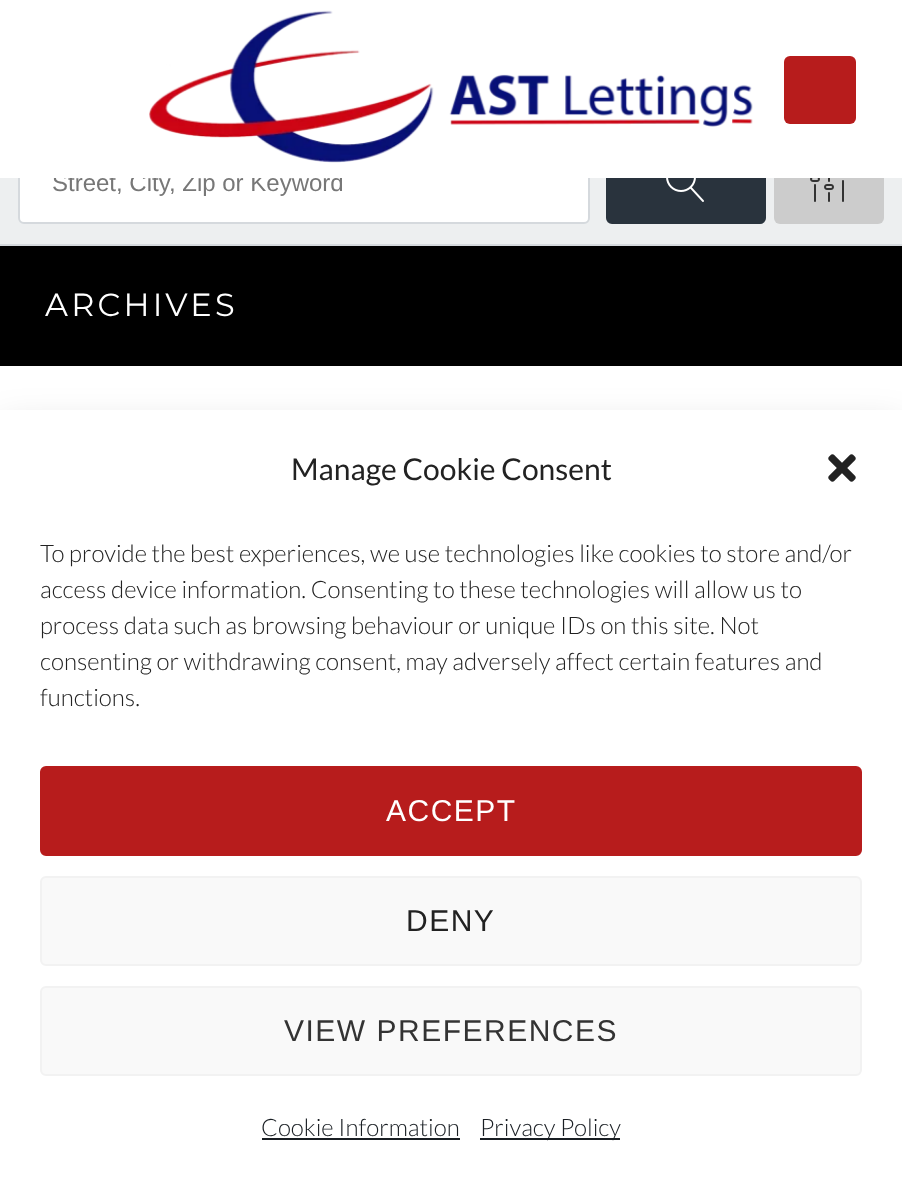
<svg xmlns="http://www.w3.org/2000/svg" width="902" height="1186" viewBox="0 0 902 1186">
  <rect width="100%" height="100%" fill="rgb(255,255,255)"/>
  <rect x="0" y="178" width="902" height="66" fill="rgb(237,239,240)"/>
  <rect x="19" y="141" width="570" height="82" rx="5" fill="rgb(255,255,255)" stroke="rgb(213,217,221)" stroke-width="2"/>
  <text x="52" y="191" font-family="Liberation Sans" font-size="24" fill="rgb(119,119,119)">Street, City, Zip or Keyword</text>
  <rect x="606" y="140" width="160" height="84" rx="6" fill="rgb(41,51,61)"/>
  <rect x="774" y="140" width="110" height="84" rx="6" fill="rgb(204,204,204)"/>
  <rect x="18" y="140" width="866" height="38" fill="rgb(255,255,255)"/>
  <image x="149" y="10" width="604" height="153" href="pic1.png"/>
  <rect x="784" y="56" width="72" height="68" rx="6" fill="rgb(183,28,28)"/>
  <rect x="0" y="244" width="902" height="2" fill="rgb(213,217,221)"/>
  <image x="666" y="178" width="38" height="24" href="pic2.png"/>
  <image x="810" y="178" width="34" height="24" href="pic3.png"/>
  <rect x="0" y="246" width="902" height="120" fill="rgb(0,0,0)"/>
  <text x="45" y="316" font-family="Montserrat" font-size="32" letter-spacing="3.25" fill="rgb(255,255,255)">ARCHIVES</text>
  <rect x="0" y="430" width="902" height="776" fill="rgba(0,0,0,0.19)" filter="blur(20px)"/>
  <rect x="0" y="410" width="902" height="776" fill="rgb(255,255,255)"/>
  <text x="291" y="480" font-family="Lato" font-size="30" fill="rgb(34,34,34)">Manage Cookie Consent</text>
  <image x="828" y="454" width="28" height="28" href="pic4.png"/>
  <g font-family="Lato" font-size="24" font-weight="300" fill="rgb(34,34,34)">
    <text>
      <tspan x="40" y="562">To provide the best experiences, we use technologies like cookies to store and/or</tspan>
      <tspan x="40" y="598">access device information. Consenting to these technologies will allow us to</tspan>
      <tspan x="40" y="634">process data such as browsing behaviour or unique IDs on this site. Not</tspan>
      <tspan x="40" y="670">consenting or withdrawing consent, may adversely affect certain features and</tspan>
      <tspan x="40" y="706">functions.</tspan>
    </text>
  </g>
  <rect x="41" y="767" width="820" height="88" rx="5" fill="rgb(183,28,28)" stroke="rgb(183,28,28)" stroke-width="2"/>
  <text x="386" y="821" font-family="Liberation Sans" font-size="30" letter-spacing="1.5" fill="rgb(255,255,255)">ACCEPT</text>
  <rect x="41" y="877" width="820" height="88" rx="5" fill="rgb(249,249,249)" stroke="rgb(242,242,242)" stroke-width="2"/>
  <text x="406" y="931" font-family="Liberation Sans" font-size="30" letter-spacing="1.5" fill="rgb(34,34,34)">DENY</text>
  <rect x="41" y="987" width="820" height="88" rx="5" fill="rgb(249,249,249)" stroke="rgb(242,242,242)" stroke-width="2"/>
  <text x="284" y="1041" font-family="Liberation Sans" font-size="30" letter-spacing="1.5" fill="rgb(51,51,51)">VIEW PREFERENCES</text>
  <text x="261" y="1136" font-family="Lato" font-size="24" font-weight="300" fill="rgb(25,30,35)">Cookie Information</text>
  <rect x="262" y="1138" width="198" height="2" fill="rgb(25,30,35)"/>
  <rect x="480" y="1138" width="140" height="2" fill="rgb(25,30,35)"/>
  <text x="480" y="1136" font-family="Lato" font-size="24" font-weight="300" fill="rgb(25,30,35)">Privacy Policy</text>
</svg>
